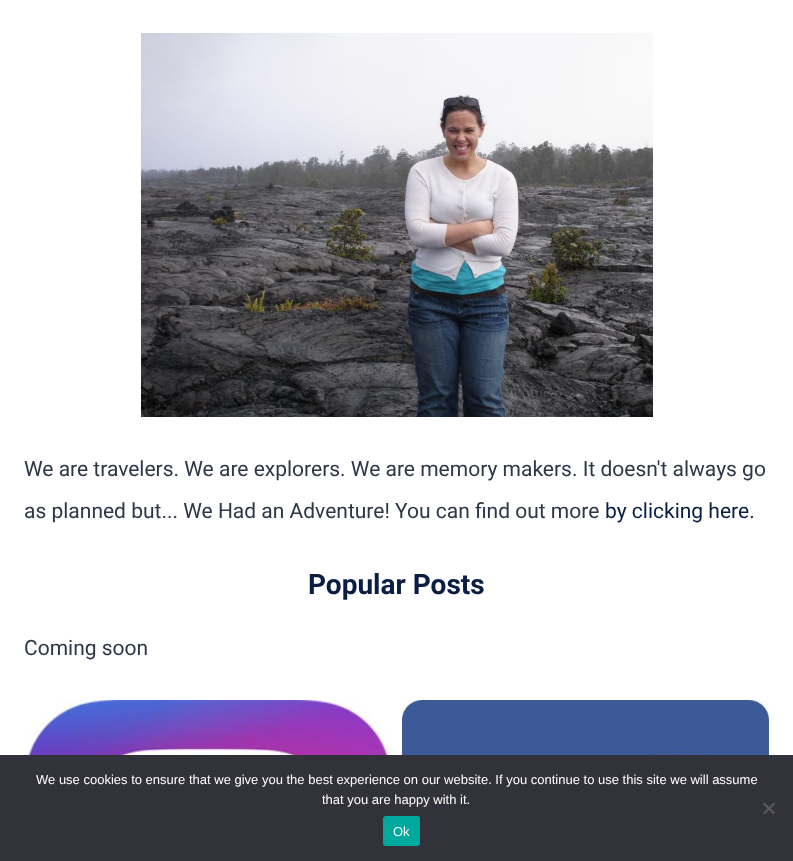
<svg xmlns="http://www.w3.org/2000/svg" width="793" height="861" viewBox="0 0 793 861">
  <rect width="100%" height="100%" fill="rgb(255,255,255)"/>
  <image x="141" y="33" width="512" height="384" href="pic1.png"/>
  <g font-family="Roboto" font-size="21" fill="rgb(45,55,72)">
    <text x="24" y="476">We are travelers. We are explorers. We are memory makers. It doesn't always go</text>
    <text x="24" y="518">as planned but... We Had an Adventure! You can find out more</text>
  </g>
  <text x="605" y="518" font-family="Roboto" font-size="21" fill="rgb(10,29,66)">by clicking here.</text>
  <text x="308" y="594" font-family="Roboto" font-size="28" font-weight="bold" fill="rgb(10,29,66)">Popular Posts</text>
  <text x="24" y="655" font-family="Roboto" font-size="21" fill="rgb(45,55,72)">Coming soon</text>
  <image x="24" y="700" width="368" height="55" href="pic2.png"/>
  <image x="402" y="700" width="367" height="55" href="pic3.png"/>
  <rect x="0" y="755" width="793" height="106" fill="rgb(50,50,58)"/>
  <g font-family="Liberation Sans" font-size="13" fill="rgb(255,255,255)">
    <text x="36" y="784">We use cookies to ensure that we give you the best experience on our website. If you continue to use this site we will assume</text>
    <text x="322" y="804">that you are happy with it.</text>
  </g>
  <path d="M773.5 802.5L775 804L764.5 814.5L763 813Z" fill="rgb(89,89,93)"/>
  <path d="M763 804L764.5 802.5L775 813L773.5 814.5Z" fill="rgb(89,89,93)"/>
  <rect x="383" y="816" width="37" height="30" rx="3" fill="rgb(0,169,157)"/>
  <text x="393" y="836" font-family="Liberation Sans" font-size="13" fill="rgb(255,255,255)">Ok</text>
</svg>
